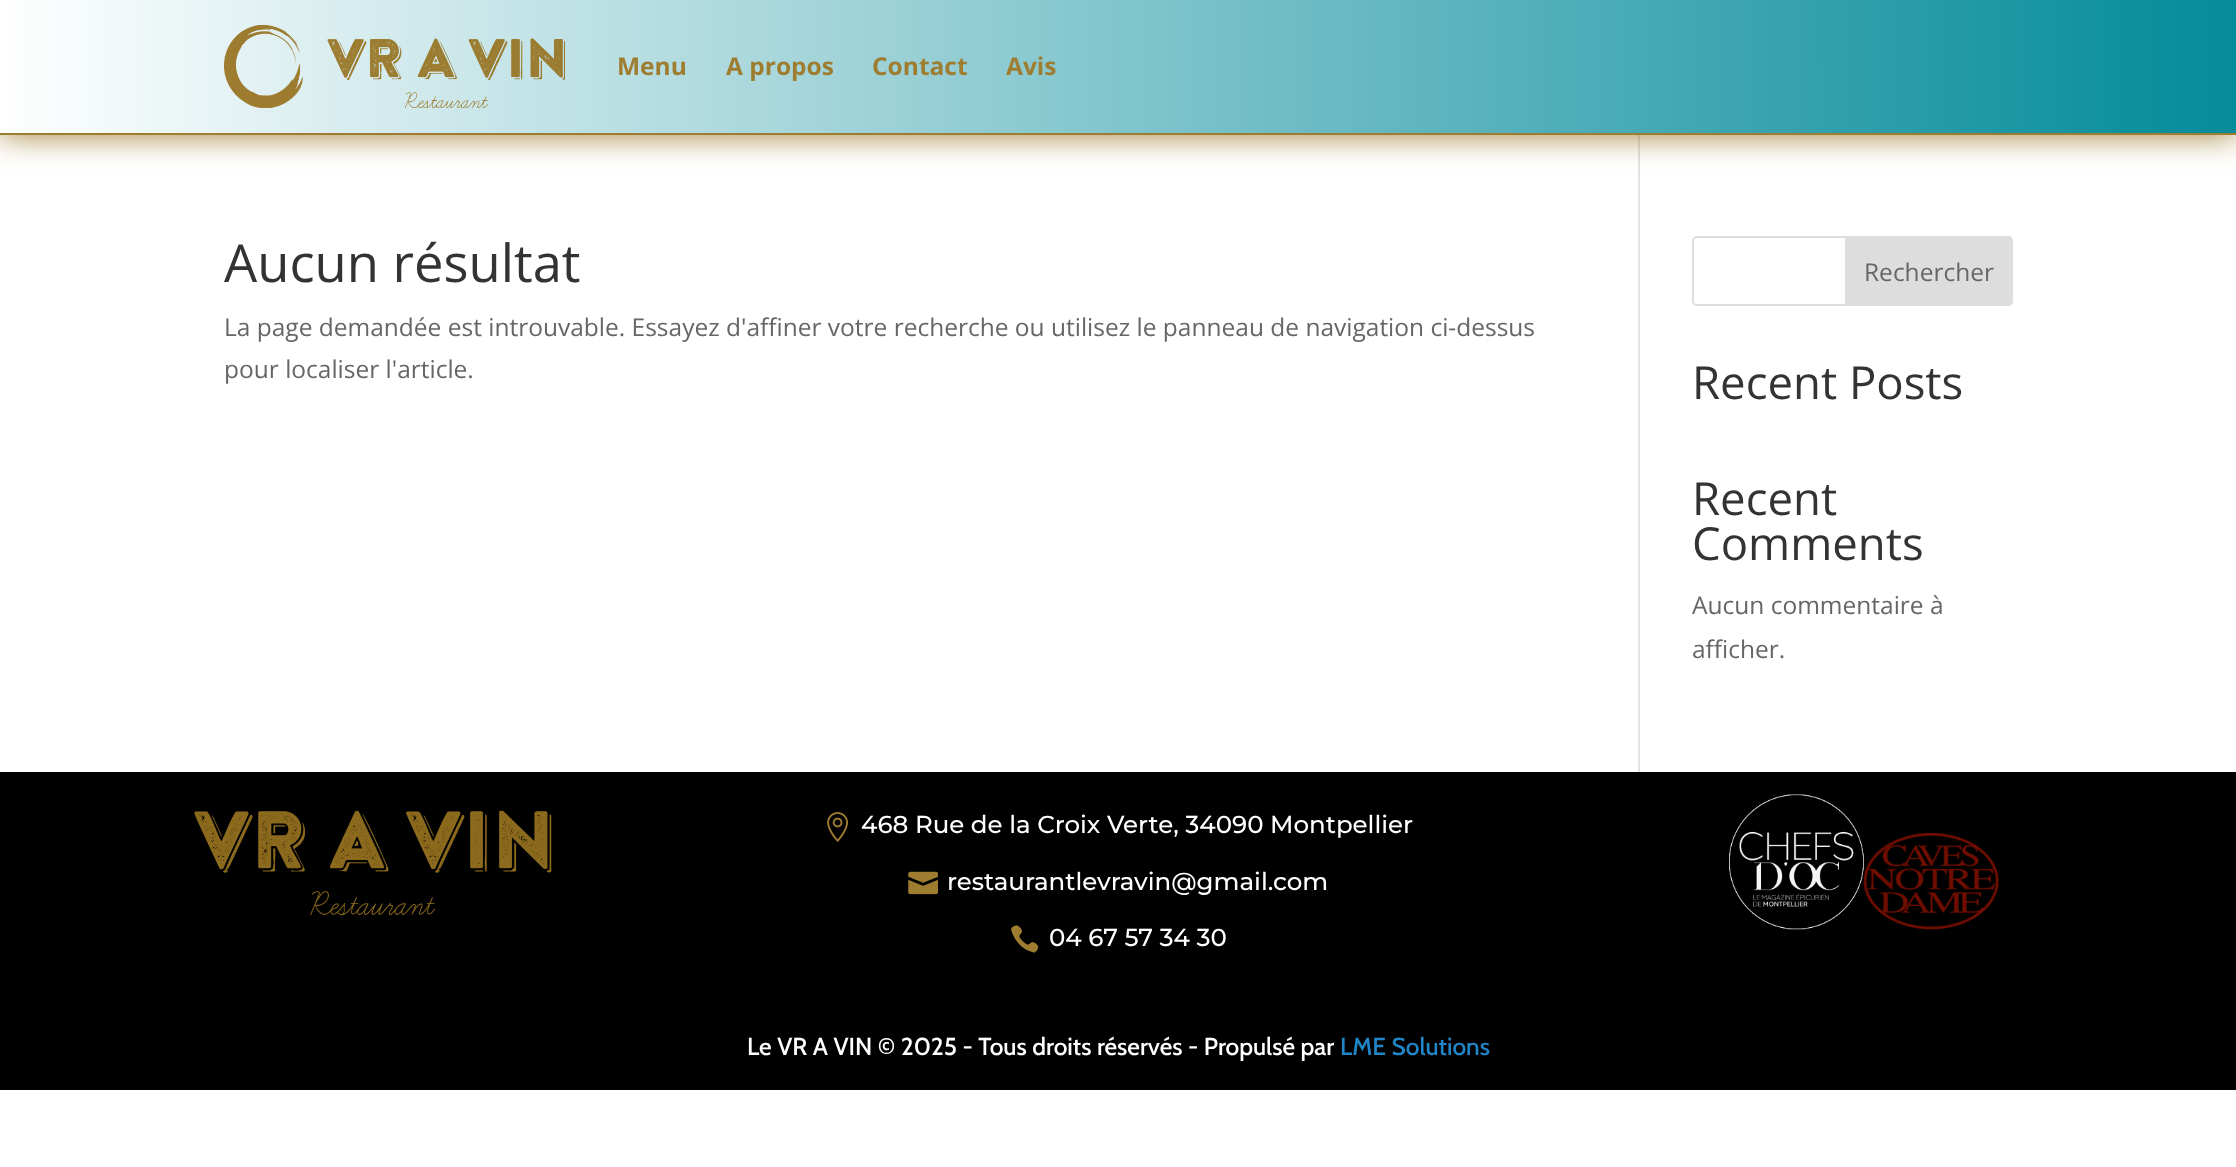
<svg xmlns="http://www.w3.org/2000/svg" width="2236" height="1167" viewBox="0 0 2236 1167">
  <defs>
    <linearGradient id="g1" gradientUnits="userSpaceOnUse" x1="0" y1="67" x2="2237" y2="66"><stop offset="0" stop-color="rgb(255,255,255)"/><stop offset="1" stop-color="rgb(4,139,154)"/></linearGradient>
  </defs>
  <rect width="100%" height="100%" fill="rgb(255,255,255)"/>
  <rect x="1638" y="135" width="2" height="637" fill="rgb(226,226,226)"/>
  <rect x="0" y="0" width="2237" height="135" fill="rgb(159,125,48)" filter="blur(16px)"/>
  <rect x="0" y="0" width="2236" height="133" fill="url(#g1)"/>
  <rect x="0" y="133" width="2236" height="2" fill="rgb(159,125,48)"/>
  <image x="224" y="25" width="341" height="83" href="pic1.png"/>
  <g font-family="Open Sans" font-size="24.5" font-weight="bold" fill="rgb(159,125,48)">
    <text x="617" y="75">Menu</text>
    <text x="726" y="75">A propos</text>
    <text x="872" y="75">Contact</text>
    <text x="1006" y="75">Avis</text>
  </g>
  <text x="224" y="282" font-family="Open Sans" font-size="52.5" fill="rgb(51,51,51)">Aucun résultat</text>
  <g font-family="Open Sans" font-size="24.5" fill="rgb(102,102,102)">
    <text>
      <tspan x="224" y="336">La page demandée est introuvable. Essayez d'affiner votre recherche ou utilisez le panneau de navigation ci-dessus</tspan>
      <tspan x="224" y="378">pour localiser l'article.</tspan>
    </text>
  </g>
  <rect x="1693" y="237" width="319" height="68" rx="4" fill="none" stroke="rgb(221,221,221)" stroke-width="2"/>
  <path d="M1846 237H2008C2010 237 2012 239 2012 241V301C2012 303 2010 305 2008 305H1846Z" fill="rgb(221,221,221)" stroke="rgb(221,221,221)" stroke-width="2"/>
  <text x="1864" y="281" font-family="Open Sans" font-size="24.5" fill="rgb(102,102,102)">Rechercher</text>
  <g font-family="Open Sans" font-size="45.5" fill="rgb(51,51,51)">
    <text x="1692" y="399">Recent Posts</text>
    <text>
      <tspan x="1692" y="515">Recent</tspan>
      <tspan x="1692" y="560">Comments</tspan>
    </text>
  </g>
  <g font-family="Open Sans" font-size="24.5" fill="rgb(102,102,102)">
    <text>
      <tspan x="1692" y="614">Aucun commentaire à</tspan>
      <tspan x="1692" y="658">afficher.</tspan>
    </text>
  </g>
  <rect x="0" y="772" width="2236" height="318" fill="rgb(0,0,0)"/>
  <image x="194" y="810" width="358" height="106" href="pic2.png"/>
  <image x="827" y="812" width="21" height="30" href="pic3.png"/>
  <text x="861" y="833" font-family="Montserrat" font-size="24.5" font-weight="500" fill="rgb(255,255,255)">468 Rue de la Croix Verte, 34090 Montpellier</text>
  <image x="908" y="871" width="30" height="24" href="pic4.png"/>
  <text x="947" y="890" font-family="Montserrat" font-size="24.5" font-weight="500" fill="rgb(255,255,255)">restaurantlevravin@gmail.com</text>
  <image x="1011" y="925" width="28" height="28" href="pic5.png"/>
  <text x="1049" y="946" font-family="Montserrat" font-size="24.5" font-weight="500" fill="rgb(255,255,255)">04 67 57 34 30</text>
  <image x="1729" y="794" width="135" height="136" href="pic6.png"/>
  <image x="1863" y="833" width="136" height="97" href="pic7.png"/>
  <text x="747" y="1055" font-family="Cabin" font-size="24.5" font-weight="500" fill="rgb(255,255,255)">Le VR A VIN © 2025 - Tous droits réservés - Propulsé par</text>
  <text x="1340" y="1055" font-family="Cabin" font-size="24.5" font-weight="500" fill="rgb(32,134,199)">LME Solutions</text>
</svg>
